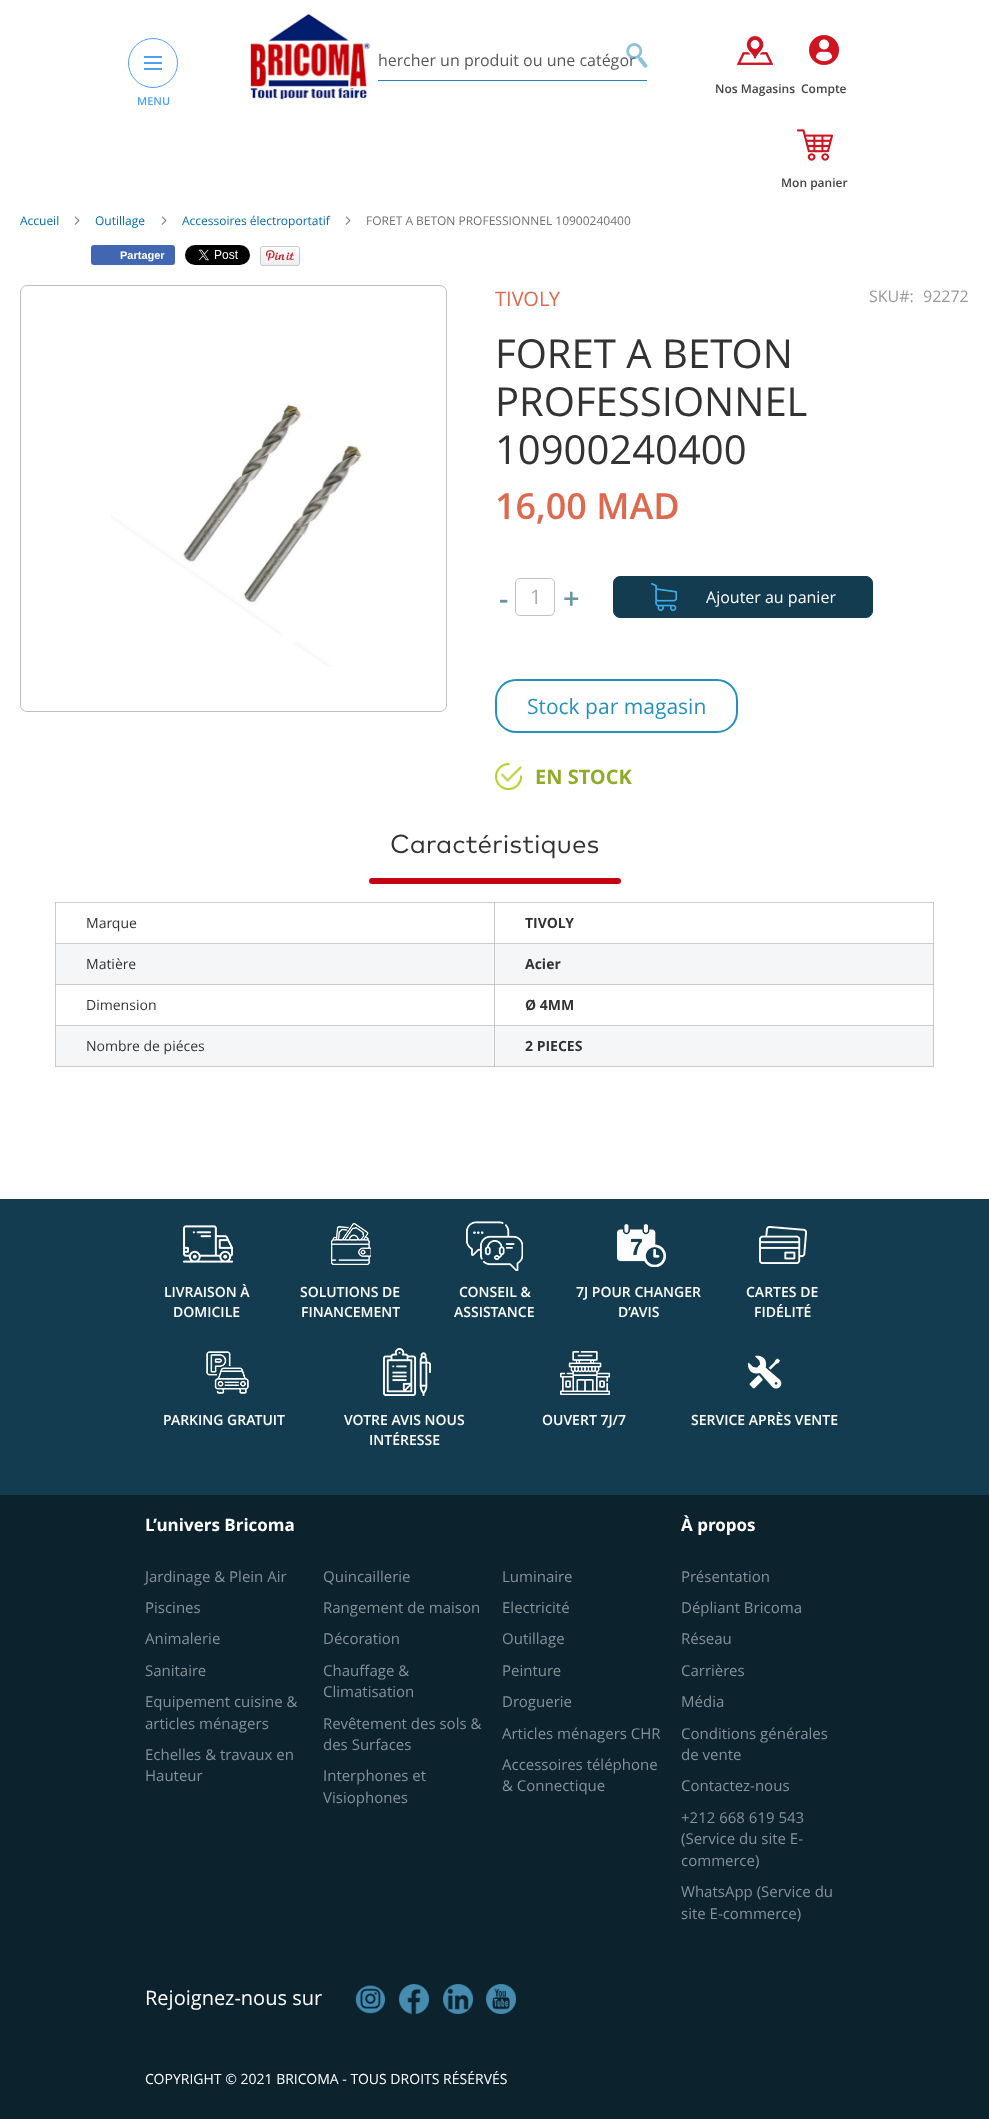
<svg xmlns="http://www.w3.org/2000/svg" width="989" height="2119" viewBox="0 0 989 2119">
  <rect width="100%" height="100%" fill="rgb(255,255,255)"/>
  <rect x="494" y="902" width="1" height="42" fill="rgb(203,203,203)"/>
  <rect x="494" y="984" width="1" height="42" fill="rgb(203,203,203)"/>
  <rect x="55" y="943" width="879" height="1" fill="rgb(203,203,203)"/>
  <rect x="494" y="943" width="1" height="1" fill="rgb(190,190,190)"/>
  <rect x="55" y="1025" width="879" height="1" fill="rgb(203,203,203)"/>
  <rect x="494" y="1025" width="1" height="1" fill="rgb(190,190,190)"/>
  <rect x="55" y="902" width="1" height="165" fill="rgb(203,203,203)"/>
  <rect x="55" y="943" width="1" height="1" fill="rgb(191,191,191)"/>
  <rect x="55" y="984" width="1" height="1" fill="rgb(191,191,191)"/>
  <rect x="55" y="1025" width="1" height="1" fill="rgb(191,191,191)"/>
  <rect x="55" y="1066" width="1" height="1" fill="rgb(193,193,193)"/>
  <rect x="933" y="902" width="1" height="42" fill="rgb(203,203,203)"/>
  <rect x="933" y="984" width="1" height="42" fill="rgb(203,203,203)"/>
  <rect x="933" y="943" width="1" height="1" fill="rgb(191,191,191)"/>
  <rect x="933" y="1025" width="1" height="1" fill="rgb(191,191,191)"/>
  <rect x="378" y="80" width="269" height="1" fill="rgb(37,132,181)"/>
  <text x="378" y="66" font-family="Open Sans" font-size="16" fill="rgb(87,87,87)">hercher un produit ou une catégor</text>
  <image x="626" y="43" width="22" height="25" href="pic1.png"/>
  <image x="249" y="14" width="129" height="86" href="pic2.png"/>
  <circle cx="153" cy="63" r="24.5" fill="none" stroke="rgb(78,161,241)"/>
  <rect x="144" y="56" width="18" height="2" fill="rgb(78,161,241)"/>
  <rect x="144" y="62" width="18" height="2" fill="rgb(78,161,241)"/>
  <rect x="144" y="68" width="18" height="2" fill="rgb(78,161,241)"/>
  <text x="137" y="105" font-family="Open Sans" font-size="11" font-weight="600" fill="rgb(78,161,241)">MENU</text>
  <image x="737" y="36" width="36" height="29" href="pic3.png"/>
  <text x="715" y="93" font-family="Open Sans" font-size="12" font-weight="600" fill="rgb(68,68,68)">Nos Magasins</text>
  <image x="809" y="35" width="30" height="30" href="pic4.png"/>
  <text x="801" y="93" font-family="Open Sans" font-size="12" font-weight="600" fill="rgb(68,68,68)">Compte</text>
  <image x="797" y="129" width="36" height="32" href="pic5.png"/>
  <text x="781" y="187" font-family="Open Sans" font-size="12" font-weight="600" fill="rgb(68,68,68)">Mon panier</text>
  <text x="20" y="225" font-family="Open Sans" font-size="12" fill="rgb(0,107,180)">Accueil</text>
  <image x="74" y="216" width="6" height="9" href="pic6.png"/>
  <text x="95" y="225" font-family="Open Sans" font-size="12" fill="rgb(0,107,180)">Outillage</text>
  <image x="161" y="216" width="6" height="9" href="pic6.png"/>
  <text x="182" y="225" font-family="Open Sans" font-size="12" fill="rgb(0,107,180)">Accessoires électroportatif</text>
  <image x="345" y="216" width="6" height="9" href="pic6.png"/>
  <text x="366" y="225" font-family="Open Sans" font-size="12" fill="rgb(112,112,112)">FORET A BETON PROFESSIONNEL 10900240400</text>
  <rect x="91" y="245" width="84" height="20" rx="3" fill="rgb(66,103,178)"/>
  <text x="120" y="259" font-family="Liberation Sans" font-size="11" font-weight="bold" fill="rgb(255,255,255)">Partager</text>
  <image x="185" y="245" width="65" height="20" href="pic7.png"/>
  <image x="260" y="246" width="40" height="20" href="pic8.png"/>
  <rect x="20.5" y="285.5" width="426" height="426" rx="6.5" fill="none" stroke="rgb(190,190,190)"/>
  <image x="111" y="401" width="252" height="266" href="pic9.png"/>
  <text x="495" y="306" font-family="Open Sans" font-size="20" fill="rgb(221,105,78)">TIVOLY</text>
  <g font-family="Open Sans" font-size="16" fill="rgb(152,152,152)">
    <text x="869" y="302">SKU#:</text>
    <text x="923" y="302">92272</text>
  </g>
  <g font-family="Open Sans" font-size="40" fill="rgb(51,51,51)">
    <text>
      <tspan x="495" y="368">FORET A BETON</tspan>
      <tspan x="495" y="416">PROFESSIONNEL</tspan>
      <tspan x="495" y="464">10900240400</tspan>
    </text>
  </g>
  <text x="495" y="519" font-family="Open Sans" font-size="36" font-weight="600" fill="rgb(221,105,78)">16,00 MAD</text>
  <text x="499" y="609" font-family="Open Sans" font-size="29" font-weight="600" fill="rgb(109,147,166)">-</text>
  <rect x="515.5" y="578.5" width="39" height="37" rx="4.5" fill="none" stroke="rgb(194,194,194)"/>
  <text x="530" y="604" font-family="Open Sans" font-size="20" fill="rgb(171,171,171)">1</text>
  <text x="563" y="609" font-family="Open Sans" font-size="29" font-weight="600" fill="rgb(109,147,166)">+</text>
  <rect x="613.5" y="576.5" width="259" height="41" rx="6.5" fill="rgb(19,60,81)" stroke="rgb(19,60,81)"/>
  <image x="651" y="583" width="26" height="28" href="pic10.png"/>
  <text x="706" y="603" font-family="Open Sans" font-size="16" fill="rgb(255,255,255)">Ajouter au panier</text>
  <rect x="496" y="680" width="241" height="52" rx="20" fill="none" stroke="rgb(39,145,189)" stroke-width="2"/>
  <text x="527" y="714" font-family="Open Sans" font-size="21" fill="rgb(39,145,189)">Stock par magasin</text>
  <image x="495" y="763" width="27" height="27" href="pic11.png"/>
  <text x="535" y="784" font-family="Open Sans" font-size="20" font-weight="bold" fill="rgb(143,172,40)">EN STOCK</text>
  <text x="390" y="853" font-family="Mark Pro" font-size="26" fill="rgb(51,51,51)">Caractéristiques</text>
  <rect x="369" y="878" width="252" height="6" rx="3" fill="rgb(196,4,15)"/>
  <rect x="55" y="902" width="879" height="1" fill="rgb(203,203,203)"/>
  <rect x="494" y="902" width="1" height="1" fill="rgb(193,193,193)"/>
  <rect x="55" y="902" width="1" height="1" fill="rgb(193,193,193)"/>
  <rect x="933" y="902" width="1" height="1" fill="rgb(193,193,193)"/>
  <text x="86" y="928" font-family="Open Sans" font-size="14" fill="rgb(51,51,51)">Marque</text>
  <text x="525" y="928" font-family="Open Sans" font-size="14" font-weight="bold" fill="rgb(51,51,51)">TIVOLY</text>
  <rect x="56" y="944" width="877" height="40" fill="rgb(245,246,247)"/>
  <rect x="494" y="944" width="1" height="41" fill="rgb(201,201,201)"/>
  <rect x="56" y="984" width="878" height="1" fill="rgb(201,201,201)"/>
  <rect x="494" y="984" width="1" height="1" fill="rgb(190,190,190)"/>
  <rect x="933" y="944" width="1" height="41" fill="rgb(201,201,201)"/>
  <rect x="933" y="984" width="1" height="1" fill="rgb(191,191,191)"/>
  <text x="86" y="969" font-family="Open Sans" font-size="14" fill="rgb(51,51,51)">Matière</text>
  <text x="525" y="969" font-family="Open Sans" font-size="14" font-weight="bold" fill="rgb(51,51,51)">Acier</text>
  <text x="86" y="1010" font-family="Open Sans" font-size="14" fill="rgb(51,51,51)">Dimension</text>
  <text x="525" y="1010" font-family="Open Sans" font-size="14" font-weight="bold" fill="rgb(51,51,51)">Ø 4MM</text>
  <rect x="56" y="1026" width="877" height="40" fill="rgb(245,246,247)"/>
  <rect x="494" y="1026" width="1" height="41" fill="rgb(201,201,201)"/>
  <rect x="56" y="1066" width="878" height="1" fill="rgb(201,201,201)"/>
  <rect x="494" y="1066" width="1" height="1" fill="rgb(192,192,192)"/>
  <rect x="933" y="1026" width="1" height="41" fill="rgb(201,201,201)"/>
  <rect x="933" y="1066" width="1" height="1" fill="rgb(192,192,192)"/>
  <text x="86" y="1051" font-family="Open Sans" font-size="14" fill="rgb(51,51,51)">Nombre de piéces</text>
  <text x="525" y="1051" font-family="Open Sans" font-size="14" font-weight="bold" fill="rgb(51,51,51)">2 PIECES</text>
  <rect x="0" y="1199" width="989" height="296" fill="rgb(19,60,81)"/>
  <image x="183" y="1225" width="50" height="38" href="pic12.png"/>
  <g font-family="Open Sans" font-size="14" font-weight="600" fill="rgb(255,255,255)">
    <text x="164" y="1297">LIVRAISON À</text>
    <text x="173" y="1317">DOMICILE</text>
  </g>
  <image x="331" y="1223" width="40" height="42" href="pic13.png"/>
  <g font-family="Open Sans" font-size="14" font-weight="600" fill="rgb(255,255,255)">
    <text x="300" y="1297">SOLUTIONS DE</text>
    <text x="301" y="1317">FINANCEMENT</text>
  </g>
  <image x="466" y="1221" width="57" height="50" href="pic14.png"/>
  <g font-family="Open Sans" font-size="14" font-weight="600" fill="rgb(255,255,255)">
    <text x="459" y="1297">CONSEIL &amp;</text>
    <text x="454" y="1317">ASSISTANCE</text>
  </g>
  <image x="617" y="1224" width="49" height="43" href="pic15.png"/>
  <g font-family="Open Sans" font-size="14" font-weight="600" fill="rgb(255,255,255)">
    <text x="576" y="1297">7J POUR CHANGER</text>
    <text x="618" y="1317">D’AVIS</text>
  </g>
  <image x="759" y="1226" width="48" height="38" href="pic16.png"/>
  <g font-family="Open Sans" font-size="14" font-weight="600" fill="rgb(255,255,255)">
    <text x="746" y="1297">CARTES DE</text>
    <text x="754" y="1317">FIDÉLITÉ</text>
  </g>
  <image x="206" y="1351" width="43" height="43" href="pic17.png"/>
  <text x="163" y="1425" font-family="Open Sans" font-size="14" font-weight="600" fill="rgb(255,255,255)">PARKING GRATUIT</text>
  <image x="383" y="1348" width="48" height="48" href="pic18.png"/>
  <g font-family="Open Sans" font-size="14" font-weight="600" fill="rgb(255,255,255)">
    <text x="344" y="1425">VOTRE AVIS NOUS</text>
    <text x="369" y="1445">INTÉRESSE</text>
  </g>
  <image x="560" y="1351" width="50" height="44" href="pic19.png"/>
  <text x="542" y="1425" font-family="Open Sans" font-size="14" font-weight="600" fill="rgb(255,255,255)">OUVERT 7J/7</text>
  <image x="748" y="1355" width="34" height="34" href="pic20.png"/>
  <text x="691" y="1425" font-family="Open Sans" font-size="14" font-weight="600" fill="rgb(255,255,255)">SERVICE APRÈS VENTE</text>
  <rect x="0" y="1495" width="989" height="624" fill="rgb(12,34,45)"/>
  <text x="145" y="1531" font-family="Open Sans" font-size="17" font-weight="bold" fill="rgb(255,255,255)">L’univers Bricoma</text>
  <g font-family="Open Sans" font-size="15" fill="rgb(132,146,153)">
    <text x="145" y="1582">Jardinage &amp; Plein Air</text>
    <text x="145" y="1613">Piscines</text>
    <text x="145" y="1644">Animalerie</text>
    <text x="145" y="1676">Sanitaire</text>
    <text>
      <tspan x="145" y="1707">Equipement cuisine &amp;</tspan>
      <tspan x="145" y="1729">articles ménagers</tspan>
    </text>
    <text>
      <tspan x="145" y="1760">Echelles &amp; travaux en</tspan>
      <tspan x="145" y="1781">Hauteur</tspan>
    </text>
    <text x="323" y="1582">Quincaillerie</text>
    <text x="323" y="1613">Rangement de maison</text>
    <text x="323" y="1644">Décoration</text>
    <text>
      <tspan x="323" y="1676">Chauffage &amp;</tspan>
      <tspan x="323" y="1697">Climatisation</tspan>
    </text>
    <text>
      <tspan x="323" y="1729">Revêtement des sols &amp;</tspan>
      <tspan x="323" y="1750">des Surfaces</tspan>
    </text>
    <text>
      <tspan x="323" y="1781">Interphones et</tspan>
      <tspan x="323" y="1803">Visiophones</tspan>
    </text>
    <text x="502" y="1582">Luminaire</text>
    <text x="502" y="1613">Electricité</text>
    <text x="502" y="1644">Outillage</text>
    <text x="502" y="1676">Peinture</text>
    <text x="502" y="1707">Droguerie</text>
    <text x="502" y="1739">Articles ménagers CHR</text>
    <text>
      <tspan x="502" y="1770">Accessoires téléphone</tspan>
      <tspan x="502" y="1791">&amp; Connectique</tspan>
    </text>
  </g>
  <text x="681" y="1531" font-family="Open Sans" font-size="17" font-weight="bold" fill="rgb(255,255,255)">À propos</text>
  <g font-family="Open Sans" font-size="15" fill="rgb(132,146,153)">
    <text x="681" y="1582">Présentation</text>
    <text x="681" y="1613">Dépliant Bricoma</text>
    <text x="681" y="1644">Réseau</text>
    <text x="681" y="1676">Carrières</text>
    <text x="681" y="1707">Média</text>
    <text>
      <tspan x="681" y="1739">Conditions générales</tspan>
      <tspan x="681" y="1760">de vente</tspan>
    </text>
    <text x="681" y="1791">Contactez-nous</text>
    <text>
      <tspan x="681" y="1823">+212 668 619 543</tspan>
      <tspan x="681" y="1844">(Service du site E-</tspan>
      <tspan x="681" y="1866">commerce)</tspan>
    </text>
    <text>
      <tspan x="681" y="1897">WhatsApp (Service du</tspan>
      <tspan x="681" y="1919">site E-commerce)</tspan>
    </text>
  </g>
  <text x="145" y="2005" font-family="Open Sans" font-size="20" fill="rgb(255,255,255)">Rejoignez-nous sur</text>
  <image x="355" y="1985" width="30" height="29" href="pic21.png"/>
  <image x="399" y="1984" width="30" height="30" href="pic22.png"/>
  <image x="443" y="1984" width="30" height="30" href="pic23.png"/>
  <image x="486" y="1984" width="30" height="30" href="pic24.png"/>
  <text x="145" y="2084" font-family="Open Sans" font-size="14" fill="rgb(255,255,255)">COPYRIGHT © 2021 BRICOMA - TOUS DROITS RÉSÉRVÉS</text>
</svg>
